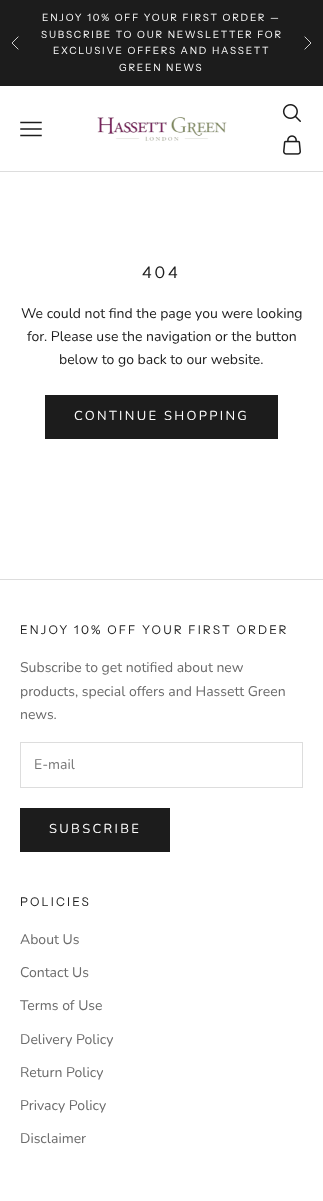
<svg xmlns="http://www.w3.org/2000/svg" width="323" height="1201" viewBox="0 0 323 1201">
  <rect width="100%" height="100%" fill="rgb(255,255,255)"/>
  <rect x="0" y="0" width="323" height="86" fill="rgb(28,28,28)"/>
  <path d="M18 37L12 43L18 49" fill="none" stroke="rgb(255,255,255)" stroke-width="0.8" stroke-linecap="square"/>
  <g font-family="Instrument Sans" font-size="10" letter-spacing="1.8" fill="rgb(255,255,255)">
    <text x="42" y="21">ENJOY 10% OFF YOUR FIRST ORDER —</text>
    <text x="41" y="38">SUBSCRIBE TO OUR NEWSLETTER FOR</text>
    <text x="53" y="54">EXCLUSIVE OFFERS AND HASSETT</text>
    <text x="119" y="71">GREEN NEWS</text>
  </g>
  <path d="M305 49L311 43L305 37" fill="none" stroke="rgb(255,255,255)" stroke-width="0.8" stroke-linecap="square"/>
  <rect x="0" y="171" width="323" height="1" fill="rgb(221,221,221)"/>
  <path d="M21 135.5H41M21 129H41M21 122.5H41" fill="none" stroke="rgb(28,28,28)" stroke-width="1.5" stroke-linecap="square"/>
  <image x="97" y="117" width="130" height="24" href="pic1.png"/>
  <image x="282" y="104" width="19" height="18" href="pic2.png"/>
  <image x="283" y="135" width="18" height="20" href="pic3.png"/>
  <text x="142" y="278" font-family="Instrument Sans" font-size="16" letter-spacing="3" fill="rgb(28,28,28)">404</text>
  <g font-family="Nunito" font-size="14" fill="rgb(28,28,28)">
    <text x="21" y="318">We could not find the page you were looking</text>
    <text x="27" y="341">for. Please use the navigation or the button</text>
    <text x="59" y="364">below to go back to our website.</text>
  </g>
  <rect x="45.5" y="395.5" width="232" height="43" fill="rgb(28,28,28)" stroke="rgb(28,28,28)"/>
  <text x="74" y="420" font-family="Nunito" font-size="13" letter-spacing="2.3" fill="rgb(255,255,255)">CONTINUE SHOPPING</text>
  <rect x="0" y="579" width="323" height="1" fill="rgb(221,221,221)"/>
  <text x="20" y="634" font-family="Instrument Sans" font-size="12" letter-spacing="2.15" fill="rgb(28,28,28)">ENJOY 10% OFF YOUR FIRST ORDER</text>
  <g font-family="Nunito" font-size="14" fill="rgb(107,107,107)">
    <text>
      <tspan x="20" y="672">Subscribe to get notified about new</tspan>
      <tspan x="20" y="696">products, special offers and Hassett Green</tspan>
      <tspan x="20" y="719">news.</tspan>
    </text>
  </g>
  <rect x="20.5" y="742.5" width="282" height="45" fill="none" stroke="rgb(221,221,221)"/>
  <text x="34" y="769" font-family="Nunito" font-size="14" fill="rgb(119,119,119)">E-mail</text>
  <rect x="20.5" y="808.5" width="149" height="43" fill="rgb(28,28,28)" stroke="rgb(28,28,28)"/>
  <text x="49" y="833" font-family="Nunito" font-size="13" letter-spacing="2.3" fill="rgb(255,255,255)">SUBSCRIBE</text>
  <text x="20" y="906" font-family="Instrument Sans" font-size="12" letter-spacing="2.15" fill="rgb(28,28,28)">POLICIES</text>
  <g font-family="Nunito" font-size="14" fill="rgb(107,107,107)">
    <text x="20" y="944">About Us</text>
    <text x="20" y="977">Contact Us</text>
    <text x="20" y="1010">Terms of Use</text>
    <text x="20" y="1044">Delivery Policy</text>
    <text x="20" y="1077">Return Policy</text>
    <text x="20" y="1110">Privacy Policy</text>
    <text x="20" y="1143">Disclaimer</text>
  </g>
</svg>
